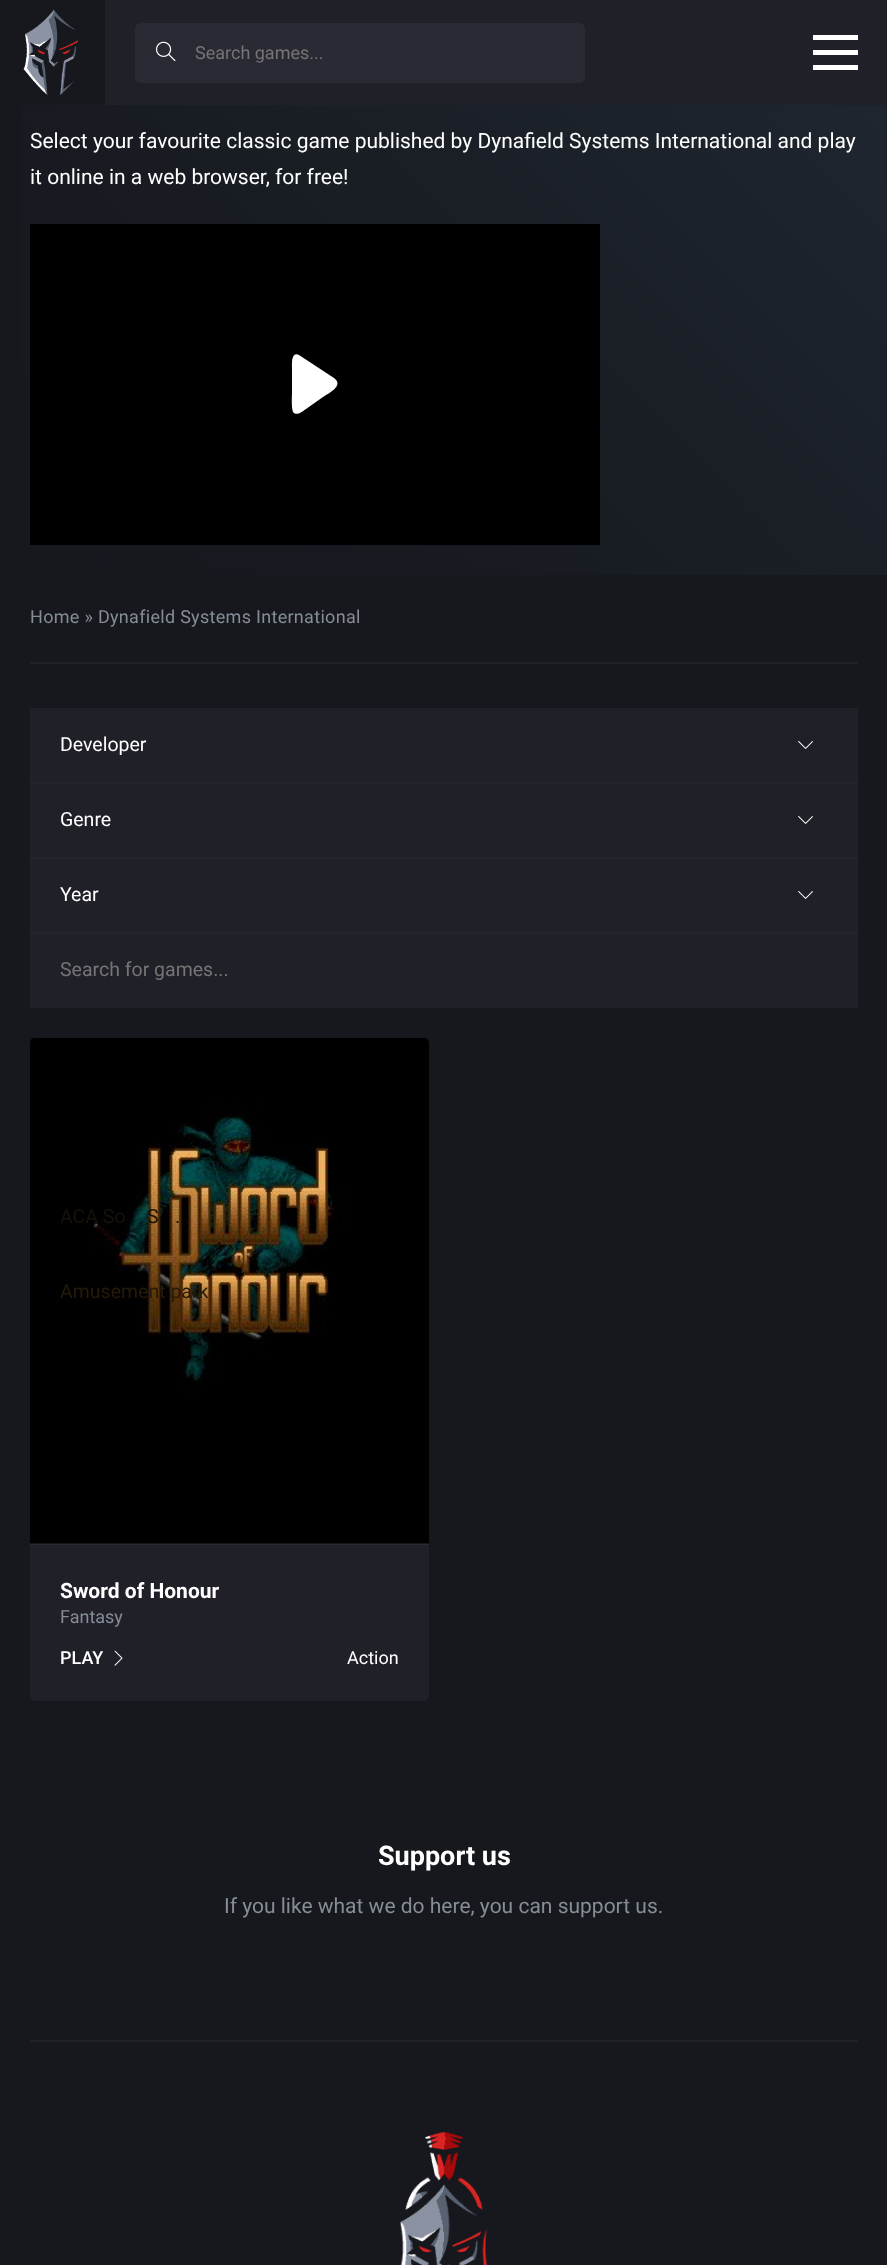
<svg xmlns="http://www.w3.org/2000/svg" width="887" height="2265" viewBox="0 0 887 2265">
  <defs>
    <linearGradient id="g1" gradientUnits="userSpaceOnUse" x1="60" y1="635" x2="828" y2="-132"><stop offset="0" stop-color="rgb(22,24,30)"/><stop offset="0.3" stop-color="rgb(23,26,32)"/><stop offset="1" stop-color="rgb(32,40,50)"/></linearGradient>
  </defs>
  <rect width="100%" height="100%" fill="rgb(22,24,30)"/>
  <rect x="105" y="0" width="782" height="105" fill="rgb(32,32,41)"/>
  <image x="23" y="9" width="56" height="86" href="pic1.png"/>
  <rect x="135" y="23" width="450" height="60" rx="6" fill="rgb(42,42,52)"/>
  <image x="155" y="41" width="21" height="21" href="pic2.png"/>
  <text x="195" y="59" font-family="Roboto" font-size="18" fill="rgb(117,117,117)">Search games...</text>
  <rect x="813" y="50" width="45" height="5" fill="rgb(255,255,255)"/>
  <rect x="813" y="35" width="45" height="5" fill="rgb(255,255,255)"/>
  <rect x="813" y="65" width="45" height="5" fill="rgb(255,255,255)"/>
  <rect x="21" y="105" width="866" height="470" fill="url(#g1)"/>
  <g font-family="Roboto" font-size="21" fill="rgb(255,255,255)">
    <text>
      <tspan x="30" y="148">Select your favourite classic game published by Dynafield Systems International and play</tspan>
      <tspan x="30" y="184">it online in a web browser, for free!</tspan>
    </text>
  </g>
  <rect x="30" y="224" width="570" height="321" fill="rgb(0,0,0)"/>
  <path d="M334 378L299 355C291 351 292 364 292 368V392C292 396 291 411 294 413C298 416 304 410 306 409L323 397C327 394 345 386 334 378Z" fill="rgb(255,255,255)"/>
  <rect x="30" y="662" width="828" height="2" fill="rgb(31,33,39)"/>
  <text x="30" y="623" font-family="Roboto" font-size="18" letter-spacing="0.3" fill="rgb(133,141,151)">Home » Dynafield Systems International</text>
  <rect x="30" y="708" width="828" height="300" fill="rgb(32,32,41)"/>
  <text x="60" y="751" font-family="Roboto" font-size="19.5" fill="rgb(255,255,255)">Developer</text>
  <image x="798" y="741" width="15" height="8" href="pic3.png"/>
  <rect x="30" y="1038" width="399" height="663" rx="5" fill="rgb(32,32,41)"/>
  <path d="M35 1038H424C427 1038 429 1040 429 1043V1545H30V1043C30 1040 32 1038 35 1038Z" fill="rgb(42,42,52)"/>
  <image x="30" y="1038" width="399" height="506" href="pic4.png"/>
  <g font-family="Roboto" font-size="19.5" fill="rgb(22,18,10)">
    <text x="60" y="1223">ACA So</text>
    <text x="147" y="1223">S</text>
    <text x="175" y="1223">.</text>
  </g>
  <rect x="30" y="782" width="828" height="2" fill="rgb(36,36,45)"/>
  <text x="60" y="826" font-family="Roboto" font-size="19.5" fill="rgb(255,255,255)">Genre</text>
  <image x="798" y="816" width="15" height="8" href="pic3.png"/>
  <text x="60" y="1298" font-family="Roboto" font-size="19.5" fill="rgb(38,26,10)">Amusement park</text>
  <rect x="30" y="857" width="828" height="2" fill="rgb(36,36,45)"/>
  <text x="60" y="901" font-family="Roboto" font-size="19.5" fill="rgb(255,255,255)">Year</text>
  <image x="798" y="891" width="15" height="8" href="pic3.png"/>
  <rect x="30" y="932" width="828" height="2" fill="rgb(36,36,45)"/>
  <text x="60" y="976" font-family="Roboto" font-size="19.5" fill="rgb(117,117,117)">Search for games...</text>
  <text x="60" y="1598" font-family="Roboto" font-size="21" font-weight="bold" fill="rgb(255,255,255)">Sword of Honour</text>
  <text x="60" y="1623" font-family="Roboto" font-size="18" fill="rgb(133,141,151)">Fantasy</text>
  <text x="60" y="1664" font-family="Roboto" font-size="18" font-weight="500" fill="rgb(255,255,255)">PLAY</text>
  <image x="114" y="1650" width="9" height="16" href="pic5.png"/>
  <text x="347" y="1664" font-family="Roboto" font-size="18" fill="rgb(255,255,255)">Action</text>
  <rect x="30" y="2040" width="828" height="2" fill="rgb(31,33,39)"/>
  <text x="378" y="1865" font-family="Roboto" font-size="27" font-weight="bold" fill="rgb(255,255,255)">Support us</text>
  <text x="224" y="1913" font-family="Roboto" font-size="21" fill="rgb(133,141,151)">If you like what we do here, you can support us.</text>
  <image x="399" y="2131" width="89" height="134" href="pic6.png"/>
</svg>
